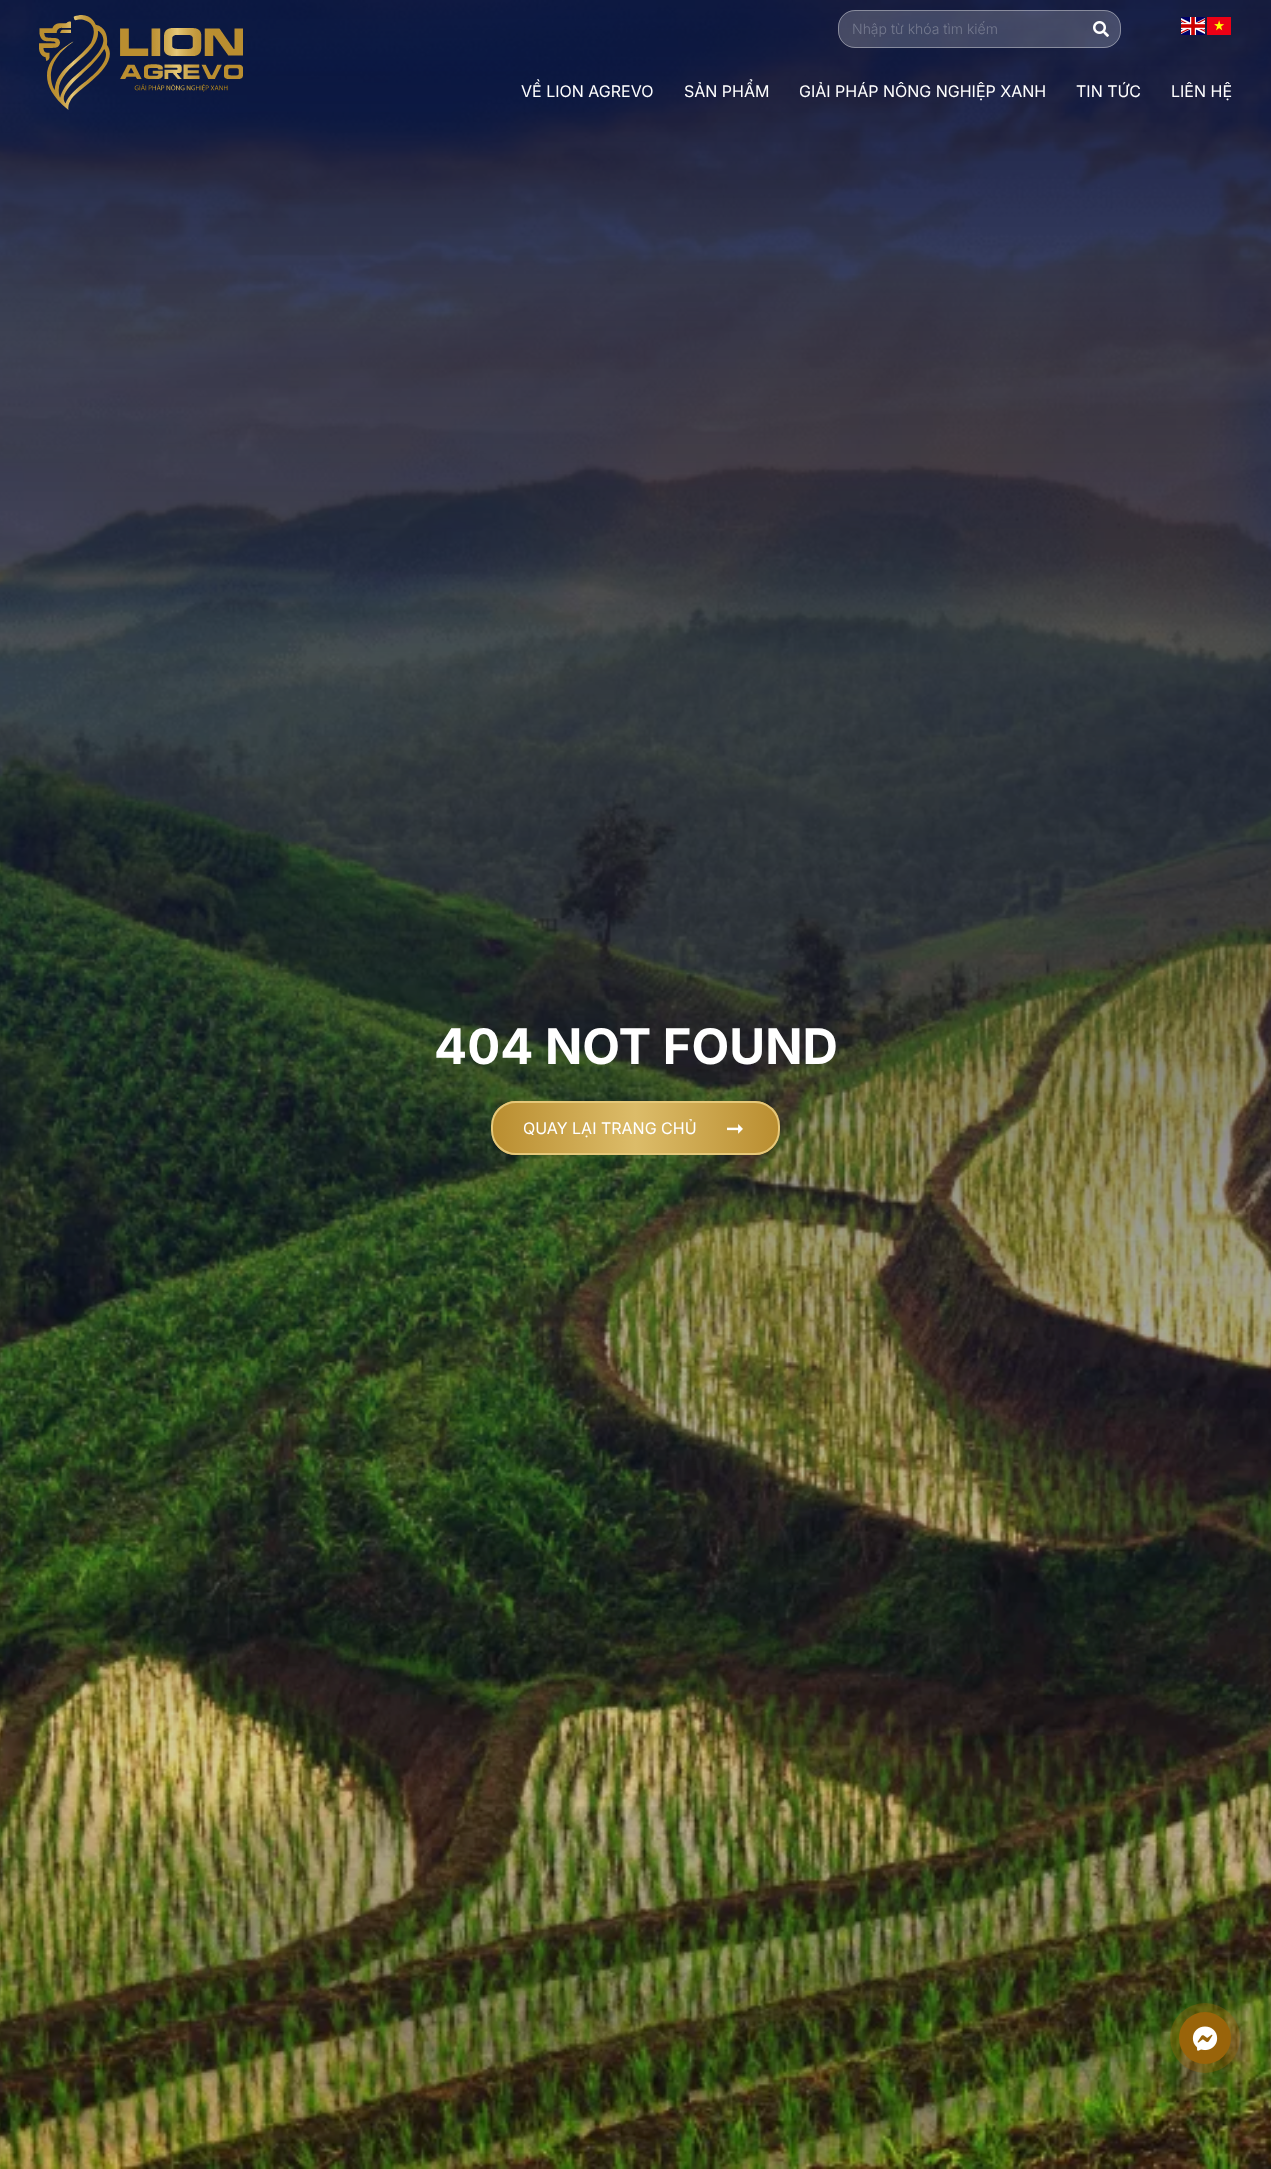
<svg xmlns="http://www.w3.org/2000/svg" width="1271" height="2169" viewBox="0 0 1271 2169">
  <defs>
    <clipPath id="clip1"><rect x="491" y="1101" width="289" height="54" rx="25"/></clipPath>
    <linearGradient id="g1" gradientUnits="userSpaceOnUse" x1="778" y1="1128" x2="493" y2="1128"><stop offset="0" stop-color="rgb(186,142,48)"/><stop offset="0.5" stop-color="rgb(220,188,105)"/><stop offset="1" stop-color="rgb(186,142,48)"/></linearGradient>
  </defs>
  <rect width="100%" height="100%" fill="rgb(255,255,255)"/>
  <image x="0" y="0" width="1271" height="2169" href="pic5.png"/>
  <image x="39" y="15" width="204" height="95" href="pic1.png"/>
  <rect x="838" y="10" width="283" height="38" rx="17" fill="rgba(255,255,255,0.2)"/>
  <rect x="838.5" y="10.5" width="282" height="37" rx="16.5" fill="none" stroke="rgba(255,255,255,0.37)"/>
  <text x="852" y="34" font-family="Inter" font-size="14" font-weight="300" fill="rgb(117,122,143)">Nhập từ khóa tìm kiếm</text>
  <image x="1093" y="21" width="16" height="16" href="pic2.png"/>
  <image x="1181" y="17" width="24" height="18" href="pic3.png"/>
  <image x="1207" y="17" width="24" height="18" href="pic4.png"/>
  <g font-family="Inter" font-size="16" fill="rgb(255,255,255)">
    <text x="521" y="97">VỀ LION AGREVO</text>
    <text x="684" y="97">SẢN PHẨM</text>
    <text x="799" y="97">GIẢI PHÁP NÔNG NGHIỆP XANH</text>
    <text x="1076" y="97">TIN TỨC</text>
    <text x="1171" y="97">LIÊN HỆ</text>
  </g>
  <text x="434" y="1064" font-family="Inter" font-size="49" font-weight="bold" fill="rgb(255,255,255)">404 NOT FOUND</text>
  <g clip-path="url(#clip1)">
    <rect x="493" y="1101" width="285" height="54" fill="url(#g1)"/>
  </g>
  <rect x="492" y="1102" width="287" height="52" rx="24" fill="none" stroke="rgb(230,200,121)" stroke-width="2"/>
  <text x="523" y="1134" font-family="Inter" font-size="16" fill="rgb(255,255,255)">QUAY LẠI TRANG CHỦ</text>
  <image x="727" y="1124" width="16" height="10" href="pic6.png"/>
  <circle cx="1205" cy="2038" r="26" fill="rgb(153,101,10)"/>
  <circle cx="1205" cy="2038" r="35" fill="rgba(153,101,10,0.36)"/>
  <image x="1192" y="2026" width="26" height="25" href="pic7.png"/>
</svg>
